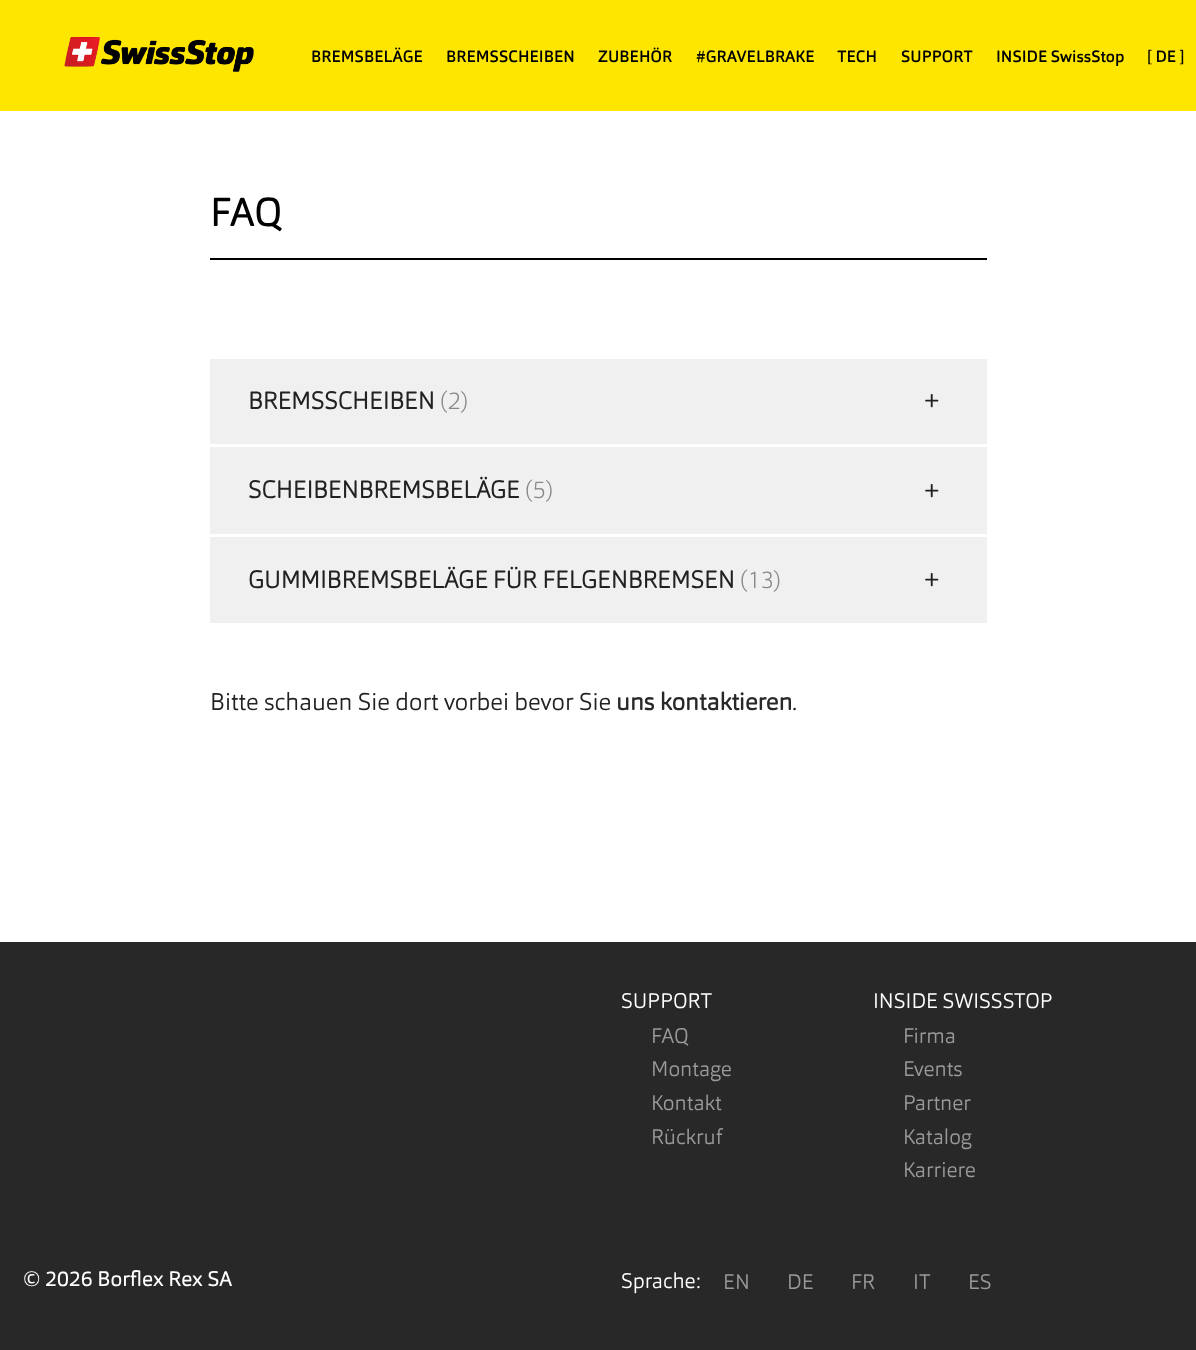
<svg xmlns="http://www.w3.org/2000/svg" width="1196" height="1350" viewBox="0 0 1196 1350">
  <rect width="100%" height="100%" fill="rgb(255,255,255)"/>
  <rect x="0" y="0" width="1196" height="111" fill="rgb(255,230,0)"/>
  <image x="64" y="36" width="190" height="36" href="pic1.png"/>
  <g font-family="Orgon" font-size="16.25" font-weight="500" fill="rgb(0,0,0)">
    <text x="311" y="62">BREMSBELÄGE</text>
    <text x="446" y="62">BREMSSCHEIBEN</text>
    <text x="598" y="62">ZUBEHÖR</text>
    <text x="696" y="62">#GRAVELBRAKE</text>
    <text x="837" y="62">TECH</text>
    <text x="901" y="62">SUPPORT</text>
    <text x="996" y="62">INSIDE SwissStop</text>
    <text x="1147" y="62">[ DE ]</text>
  </g>
  <rect x="210" y="258" width="777" height="2" fill="rgb(0,0,0)"/>
  <text x="210" y="226" font-family="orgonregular" font-size="40" fill="rgb(0,0,0)">FAQ</text>
  <rect x="210" y="359" width="777" height="85" fill="rgb(240,240,240)"/>
  <text x="248" y="409" font-family="Orgon" font-size="24" font-weight="bold" fill="rgb(34,34,34)">BREMSSCHEIBEN</text>
  <text x="440" y="409" font-family="Orgon" font-size="24" font-weight="200" fill="rgb(136,136,136)">(2)</text>
  <text x="923" y="408" font-family="Orgon" font-size="24" font-weight="bold" fill="rgb(34,34,34)">+</text>
  <rect x="210" y="447" width="777" height="87" fill="rgb(240,240,240)"/>
  <text x="248" y="498" font-family="Orgon" font-size="24" font-weight="bold" fill="rgb(34,34,34)">SCHEIBENBREMSBELÄGE</text>
  <text x="525" y="498" font-family="Orgon" font-size="24" font-weight="200" fill="rgb(136,136,136)">(5)</text>
  <text x="923" y="498" font-family="Orgon" font-size="24" font-weight="bold" fill="rgb(34,34,34)">+</text>
  <rect x="210" y="537" width="777" height="86" fill="rgb(240,240,240)"/>
  <text x="248" y="588" font-family="Orgon" font-size="24" font-weight="bold" fill="rgb(34,34,34)">GUMMIBREMSBELÄGE FÜR FELGENBREMSEN</text>
  <text x="740" y="588" font-family="Orgon" font-size="24" font-weight="200" fill="rgb(136,136,136)">(13)</text>
  <text x="923" y="587" font-family="Orgon" font-size="24" font-weight="bold" fill="rgb(34,34,34)">+</text>
  <text x="210" y="710" font-family="Orgon" font-size="24" font-weight="300" fill="rgb(34,34,34)">Bitte schauen Sie dort vorbei bevor Sie</text>
  <text x="616" y="710" font-family="'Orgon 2'" font-size="24" font-weight="bold" fill="rgb(40,40,40)">uns kontaktieren</text>
  <text x="792" y="710" font-family="Orgon" font-size="24" font-weight="300" fill="rgb(34,34,34)">.</text>
  <rect x="0" y="942" width="1196" height="408" fill="rgb(40,40,40)"/>
  <text x="621" y="1008" font-family="Orgon" font-size="21" font-weight="300" fill="rgb(255,255,255)">SUPPORT</text>
  <g font-family="Orgon" font-size="21" font-weight="300" fill="rgb(153,153,153)">
    <text>
      <tspan x="651" y="1043">FAQ</tspan>
      <tspan x="651" y="1076">Montage</tspan>
      <tspan x="651" y="1110">Kontakt</tspan>
      <tspan x="651" y="1144">Rückruf</tspan>
    </text>
  </g>
  <text x="873" y="1008" font-family="Orgon" font-size="21" font-weight="300" fill="rgb(255,255,255)">INSIDE SWISSSTOP</text>
  <g font-family="Orgon" font-size="21" font-weight="300" fill="rgb(153,153,153)">
    <text>
      <tspan x="903" y="1043">Firma</tspan>
      <tspan x="903" y="1076">Events</tspan>
      <tspan x="903" y="1110">Partner</tspan>
      <tspan x="903" y="1144">Katalog</tspan>
      <tspan x="903" y="1177">Karriere</tspan>
    </text>
  </g>
  <text x="23" y="1286" font-family="orgonregular" font-size="21" fill="rgb(255,255,255)">© 2026 Borflex Rex SA</text>
  <text x="621" y="1288" font-family="Orgon" font-size="21" font-weight="300" fill="rgb(255,255,255)">Sprache:</text>
  <g font-family="Orgon" font-size="21" font-weight="300" fill="rgb(153,153,153)">
    <text x="723" y="1289">EN</text>
    <text x="787" y="1289">DE</text>
    <text x="851" y="1289">FR</text>
    <text x="913" y="1289">IT</text>
    <text x="968" y="1289">ES</text>
  </g>
</svg>
